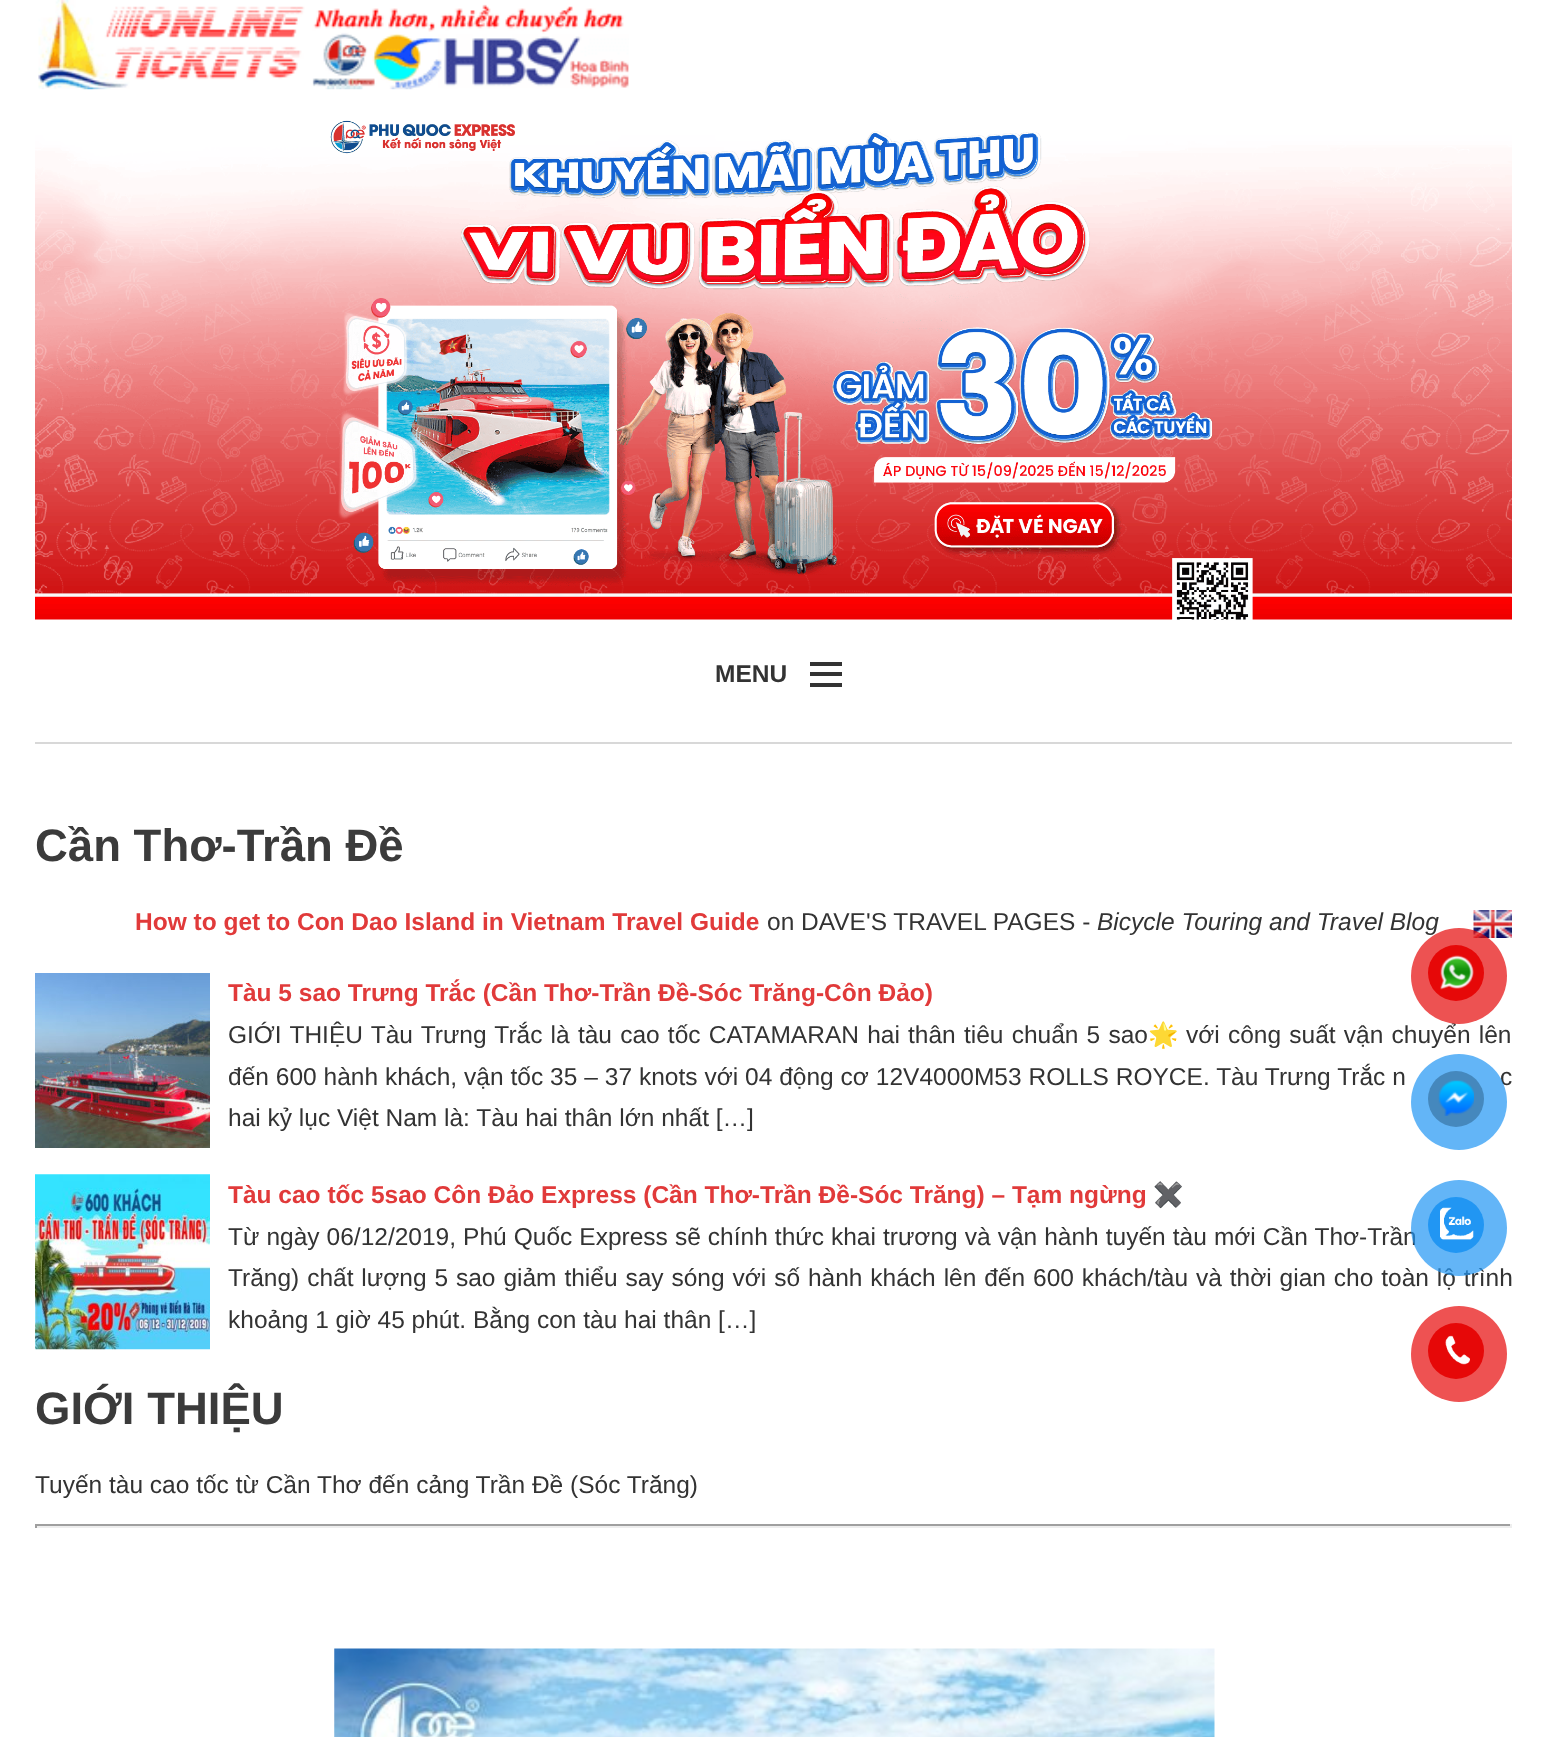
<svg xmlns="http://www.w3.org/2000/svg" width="1547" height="1737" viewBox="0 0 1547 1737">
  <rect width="100%" height="100%" fill="rgb(255,255,255)"/>
  <image x="38" y="0" width="591" height="90" href="pic1.png"/>
  <image x="35" y="120" width="1477" height="500" href="pic2.png"/>
  <rect x="810" y="683" width="32" height="4" fill="rgb(51,51,51)"/>
  <rect x="810" y="672" width="32" height="4" fill="rgb(51,51,51)"/>
  <rect x="810" y="662" width="32" height="4" fill="rgb(51,51,51)"/>
  <text x="715" y="682" font-family="Liberation Sans" font-size="24.5" font-weight="bold" fill="rgb(51,51,51)">MENU</text>
  <rect x="35" y="742" width="1477" height="2" fill="rgb(216,216,216)"/>
  <text x="35" y="861" font-family="Liberation Sans" font-size="45.5" font-weight="bold" fill="rgb(59,59,59)">Cần Thơ-Trần Đề</text>
  <text x="135" y="930" font-family="Liberation Sans" font-size="24.5" font-weight="bold" fill="rgb(225,58,58)">How to get to Con Dao Island in Vietnam Travel Guide</text>
  <text x="767" y="930" font-family="Liberation Sans" font-size="24.5" fill="rgb(51,51,51)">on DAVE'S TRAVEL PAGES -</text>
  <text x="1097" y="930" font-family="Liberation Sans" font-size="24.5" font-style="italic" fill="rgb(51,51,51)">Bicycle Touring and Travel Blog</text>
  <image x="1473" y="910" width="39" height="28" href="pic3.png"/>
  <image x="35" y="973" width="175" height="175" href="pic4.png"/>
  <text x="228" y="1001" font-family="Liberation Sans" font-size="24.5" font-weight="bold" fill="rgb(225,58,58)">Tàu 5 sao Trưng Trắc (Cần Thơ-Trần Đề-Sóc Trăng-Côn Đảo)</text>
  <text x="228" y="1043" word-spacing="1.4" font-family="Liberation Sans" font-size="24.5" fill="rgb(51,51,51)">GIỚI THIỆU Tàu Trưng Trắc là tàu cao tốc CATAMARAN hai thân tiêu chuẩn 5 sao</text>
  <text x="1148" y="1043" font-family="Noto Color Emoji" font-size="24.5" fill="rgb(51,51,51)">🌟</text>
  <g font-family="Liberation Sans" font-size="24.5" fill="rgb(51,51,51)">
    <text x="1186" y="1043" word-spacing="1.4">với công suất vận chuyển lên</text>
    <text x="228" y="1085" word-spacing="0.1">đến 600 hành khách, vận tốc 35 – 37 knots với 04 động cơ 12V4000M53 ROLLS ROYCE. Tàu Trưng Trắc n</text>
    <text x="1500" y="1085" word-spacing="0.1">c</text>
    <text x="228" y="1126">hai kỷ lục Việt Nam là: Tàu hai thân lớn nhất […]</text>
  </g>
  <image x="35" y="1174" width="175" height="176" href="pic5.png"/>
  <text x="228" y="1203" font-family="Liberation Sans" font-size="24.5" font-weight="bold" fill="rgb(225,58,58)">Tàu cao tốc 5sao Côn Đảo Express (Cần Thơ-Trần Đề-Sóc Trăng) – Tạm ngừng</text>
  <text x="1153" y="1203" font-family="Noto Color Emoji" font-size="24.5" font-weight="bold" fill="rgb(225,58,58)">✖️</text>
  <g font-family="Liberation Sans" font-size="24.5" fill="rgb(51,51,51)">
    <text>
      <tspan x="228" y="1245" word-spacing="0.25">Từ ngày 06/12/2019, Phú Quốc Express sẽ chính thức khai trương và vận hành tuyến tàu mới Cần Thơ-Trần</tspan>
      <tspan x="228" y="1286" word-spacing="1.1">Trăng) chất lượng 5 sao giảm thiểu say sóng với số hành khách lên đến 600 khách/tàu và thời gian cho toàn lộ trình</tspan>
      <tspan x="228" y="1328">khoảng 1 giờ 45 phút. Bằng con tàu hai thân […]</tspan>
    </text>
  </g>
  <text x="35" y="1424" font-family="Liberation Sans" font-size="45.5" font-weight="bold" fill="rgb(59,59,59)">GIỚI THIỆU</text>
  <text x="35" y="1493" font-family="Liberation Sans" font-size="24.5" fill="rgb(51,51,51)">Tuyến tàu cao tốc từ Cần Thơ đến cảng Trần Đề (Sóc Trăng)</text>
  <rect x="35" y="1524" width="1477" height="2" fill="rgb(159,159,159)"/>
  <rect x="1510" y="1524" width="2" height="4" fill="rgb(238,238,238)"/>
  <rect x="35" y="1526" width="1477" height="2" fill="rgb(238,238,238)"/>
  <rect x="35" y="1524" width="2" height="4" fill="rgb(159,159,159)"/>
  <image x="334" y="1648" width="881" height="89" href="pic6.png"/>
  <circle cx="1459" cy="976" r="48" fill="rgba(230,8,8,0.7)"/>
  <circle cx="1456" cy="973" r="28" fill="rgb(230,8,8)"/>
  <image x="1440" y="955" width="34" height="35" href="pic7.png"/>
  <circle cx="1459" cy="1102" r="48" fill="rgba(33,150,243,0.7)"/>
  <circle cx="1456" cy="1099" r="28" fill="rgb(69,136,189)"/>
  <image x="1438" y="1080" width="36" height="36" href="pic8.png"/>
  <circle cx="1459" cy="1228" r="48" fill="rgba(33,150,243,0.7)"/>
  <circle cx="1456" cy="1225" r="28" fill="rgb(33,150,243)"/>
  <image x="1440" y="1207" width="34" height="33" href="pic9.png"/>
  <circle cx="1459" cy="1354" r="48" fill="rgb(238,82,82)"/>
  <circle cx="1456" cy="1351" r="28" fill="rgb(230,8,8)"/>
  <image x="1445" y="1335" width="25" height="30" href="pic10.png"/>
</svg>
